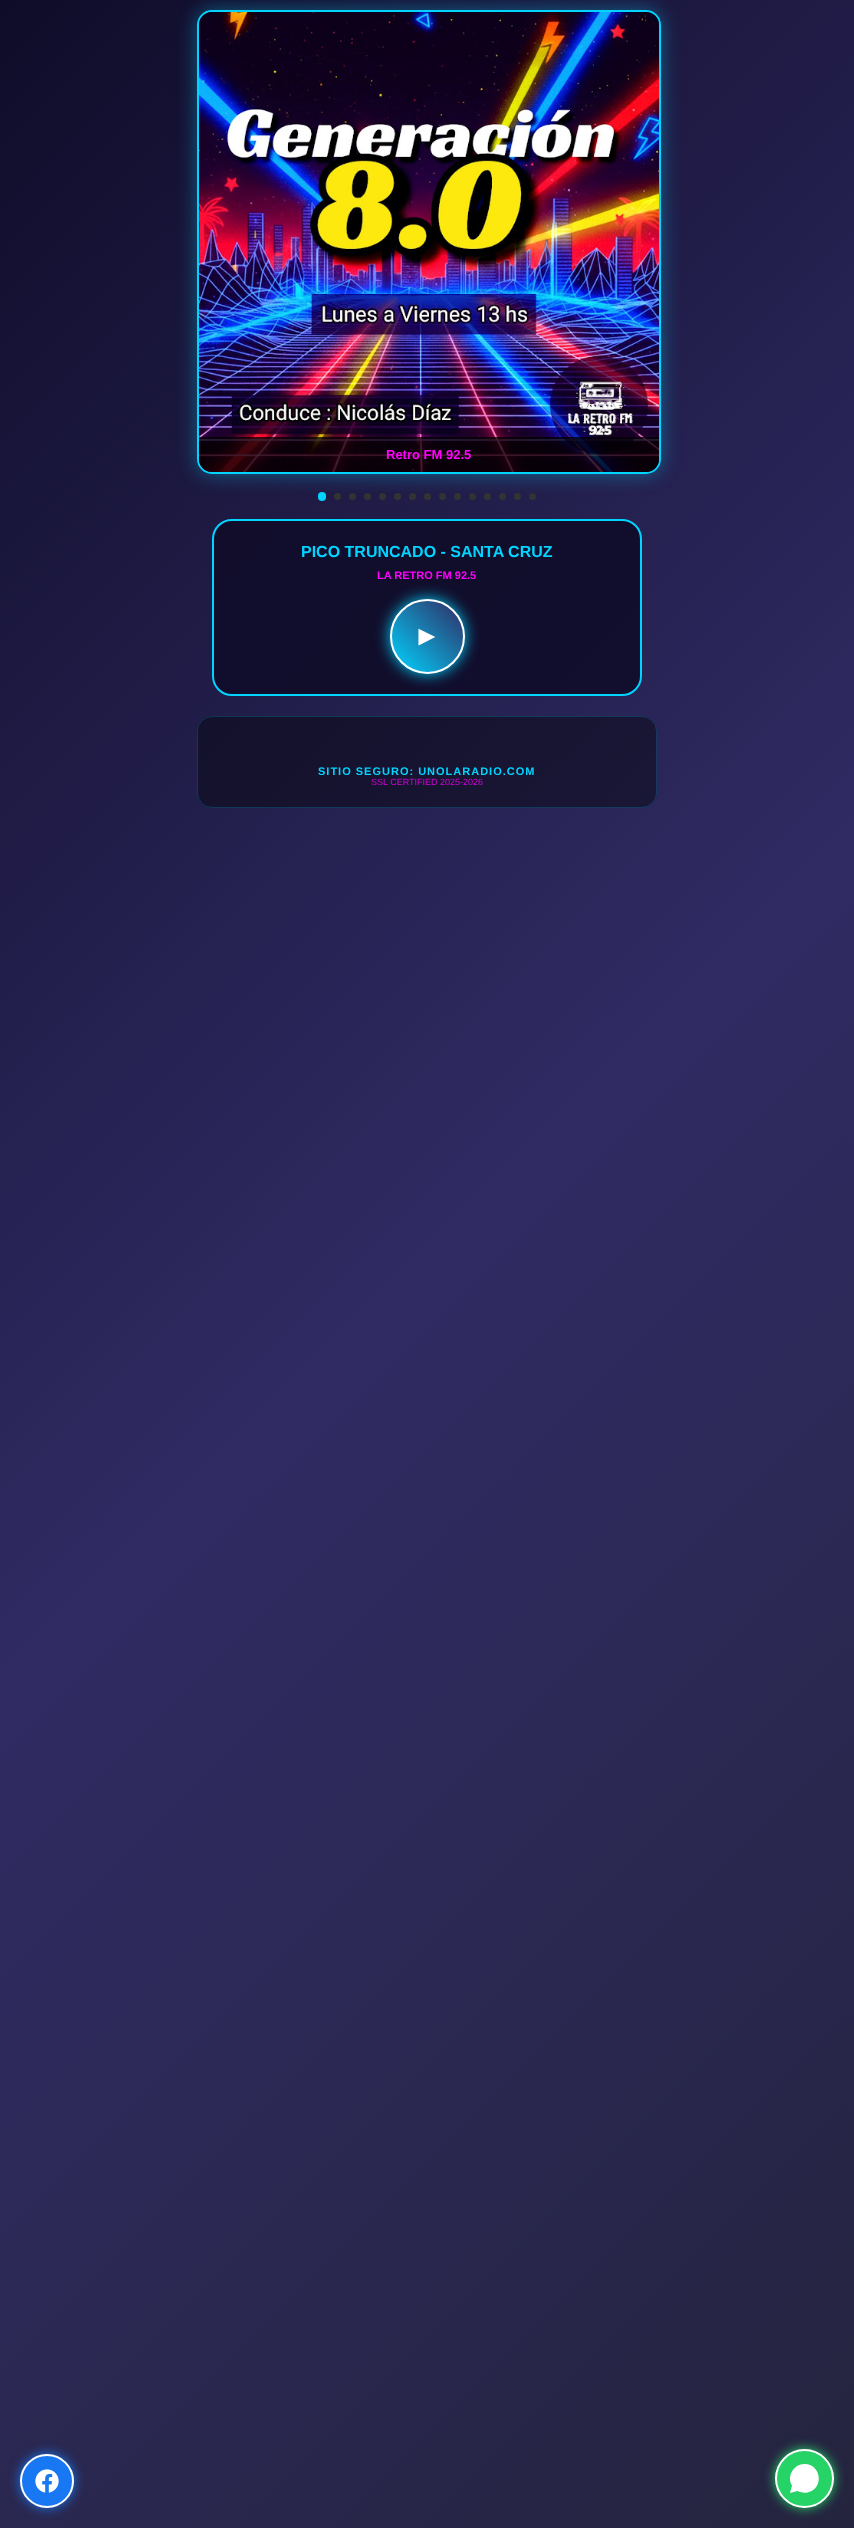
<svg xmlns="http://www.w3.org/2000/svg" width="854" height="2528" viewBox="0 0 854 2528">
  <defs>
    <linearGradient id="g1" gradientUnits="userSpaceOnUse" x1="-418" y1="419" x2="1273" y2="2110"><stop offset="0" stop-color="rgb(15,12,41)"/><stop offset="0.5" stop-color="rgb(48,43,99)"/><stop offset="1" stop-color="rgb(36,36,62)"/></linearGradient>
    <clipPath id="clip1"><rect x="390" y="599" width="75" height="75" rx="37.5"/></clipPath>
    <linearGradient id="g2" gradientUnits="userSpaceOnUse" x1="392" y1="672" x2="463" y2="601"><stop offset="0" stop-color="rgb(0,212,255)"/><stop offset="1" stop-color="rgb(48,43,99)"/></linearGradient>
  </defs>
  <rect width="100%" height="100%" fill="rgb(255,255,255)"/>
  <rect x="0" y="0" width="854" height="2528" fill="url(#g1)"/>
  <circle cx="337.5" cy="496.5" r="3.5" fill="rgb(51,51,51)"/>
  <circle cx="352.5" cy="496.5" r="3.5" fill="rgb(51,51,51)"/>
  <circle cx="367.5" cy="496.5" r="3.5" fill="rgb(51,51,51)"/>
  <circle cx="382.5" cy="496.5" r="3.5" fill="rgb(51,51,51)"/>
  <circle cx="397.5" cy="496.5" r="3.5" fill="rgb(51,51,51)"/>
  <circle cx="412.5" cy="496.5" r="3.5" fill="rgb(51,51,51)"/>
  <circle cx="427.5" cy="496.5" r="3.5" fill="rgb(51,51,51)"/>
  <circle cx="442.5" cy="496.5" r="3.5" fill="rgb(51,51,51)"/>
  <circle cx="457.5" cy="496.5" r="3.5" fill="rgb(51,51,51)"/>
  <circle cx="472.5" cy="496.5" r="3.5" fill="rgb(51,51,51)"/>
  <circle cx="487.5" cy="496.5" r="3.5" fill="rgb(51,51,51)"/>
  <circle cx="502.5" cy="496.5" r="3.5" fill="rgb(51,51,51)"/>
  <circle cx="517.5" cy="496.5" r="3.5" fill="rgb(51,51,51)"/>
  <circle cx="532.5" cy="496.5" r="3.5" fill="rgb(51,51,51)"/>
  <rect x="197" y="10" width="464" height="464" rx="15" fill="rgba(0,212,255,0.4)" filter="blur(10px)"/>
  <rect x="198" y="11" width="462" height="462" rx="14" fill="none" stroke="rgb(0,212,255)" stroke-width="2"/>
  <image x="199" y="12" width="460" height="460" href="pic1.png"/>
  <path d="M199 437H659V459C659 466 653 472 646 472H212C205 472 199 466 199 459Z" fill="rgba(0,0,0,0.75)"/>
  <text x="386" y="459" font-family="Liberation Sans" font-size="13" font-weight="bold" fill="rgb(255,0,255)">Retro FM 92.5</text>
  <rect x="318" y="492" width="8" height="9" rx="4" fill="rgb(0,212,255)"/>
  <rect x="213" y="520" width="428" height="175" rx="19" fill="rgba(15,12,41,0.9)" stroke="rgb(0,212,255)" stroke-width="2"/>
  <text x="301" y="557" font-family="Liberation Sans" font-size="16" font-weight="bold" fill="rgb(0,212,255)">PICO TRUNCADO - SANTA CRUZ</text>
  <text x="377" y="579" font-family="Liberation Sans" font-size="11" font-weight="bold" fill="rgb(255,0,255)">LA RETRO FM 92.5</text>
  <rect x="390" y="599" width="75" height="75" rx="37.5" fill="rgb(0,212,255)" filter="blur(7.5px)"/>
  <g clip-path="url(#clip1)">
    <rect x="392" y="601" width="71" height="71" fill="url(#g2)"/>
  </g>
  <circle cx="427.5" cy="636.5" r="36.5" fill="none" stroke="rgb(255,255,255)" stroke-width="2"/>
  <text x="413" y="645" font-family="Liberation Sans" font-size="28" fill="rgb(255,255,255)">►</text>
  <rect x="197" y="716" width="460" height="92" rx="15" fill="rgba(0,0,0,0.4)"/>
  <rect x="197.5" y="716.5" width="459" height="91" rx="14.5" fill="none" stroke="rgba(0,212,255,0.2)"/>
  <text x="318" y="775" font-family="Liberation Sans" font-size="11" font-weight="bold" letter-spacing="1" fill="rgb(0,212,255)">SITIO SEGURO: UNOLARADIO.COM</text>
  <text x="371" y="785" font-family="Liberation Sans" font-size="9" fill="rgb(209,4,214)">SSL CERTIFIED 2025-2026</text>
  <rect x="20" y="2454" width="54" height="54" rx="27" fill="rgb(24,119,242)" filter="blur(6px)"/>
  <circle cx="47" cy="2481" r="26" fill="rgb(24,119,242)" stroke="rgb(255,255,255)" stroke-width="2"/>
  <image x="35" y="2469" width="24" height="24" href="pic2.png"/>
  <rect x="775" y="2449" width="59" height="59" rx="29.5" fill="rgb(37,211,102)" filter="blur(6px)"/>
  <circle cx="804.5" cy="2478.5" r="28.5" fill="rgb(37,211,102)" stroke="rgb(255,255,255)" stroke-width="2"/>
  <path d="M804.5 2464C793.5 2464 786.5 2476.5 792 2485.5L790 2493L797.5 2491C800.5 2492.5 804 2493 807.5 2492.5C824.5 2489 821.5 2464 804.5 2464" fill="rgb(255,255,255)"/>
</svg>
